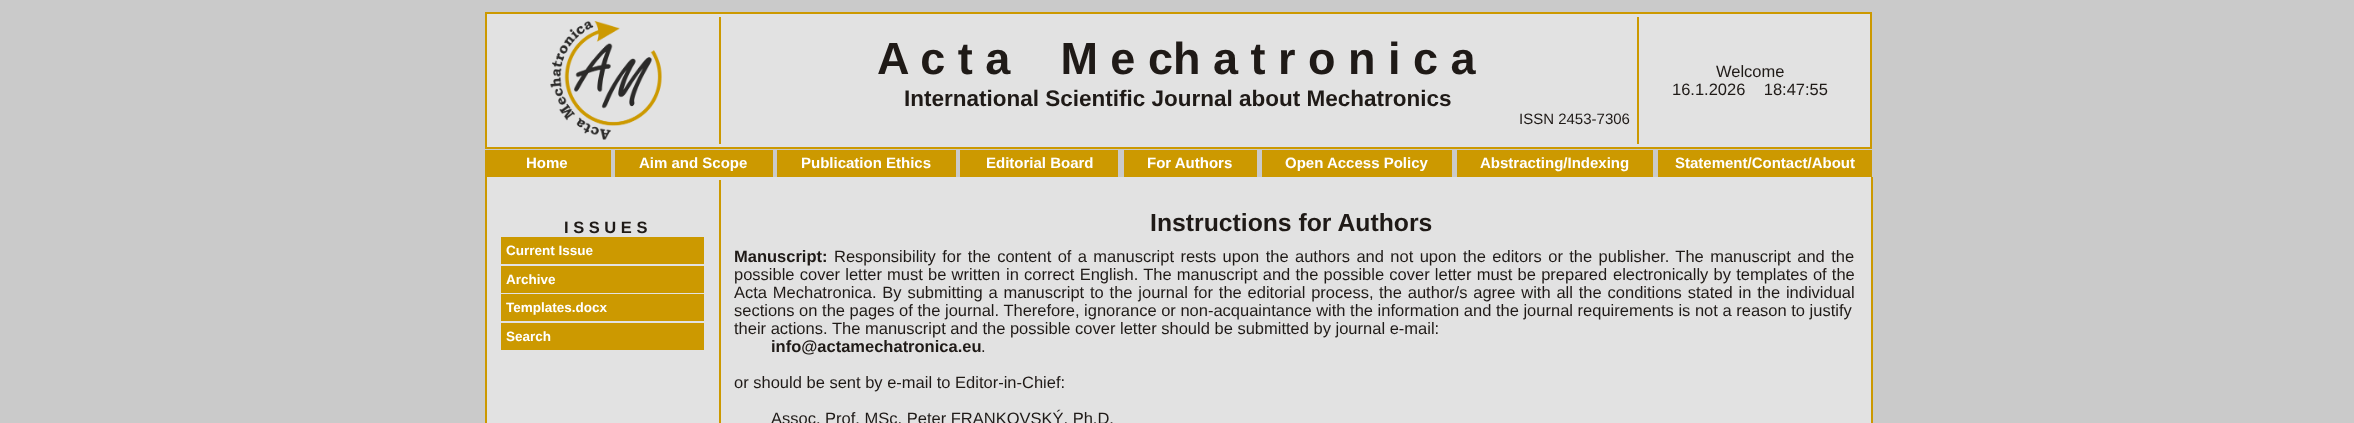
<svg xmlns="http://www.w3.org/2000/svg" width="2354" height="423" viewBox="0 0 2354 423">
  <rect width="100%" height="100%" fill="rgb(202,202,202)"/>
  <rect x="486" y="13" width="1385" height="135" fill="rgb(226,226,226)" stroke="rgb(204,153,0)" stroke-width="2"/>
  <image x="550" y="21" width="112" height="119" href="pic1.png"/>
  <rect x="719" y="17" width="2" height="127" fill="rgb(204,153,0)"/>
  <text x="877" y="74" font-family="Liberation Sans" font-size="45" font-weight="bold" fill="rgb(31,26,23)" xml:space="preserve">A c t a    M e ch a t r o n i c a</text>
  <text x="904" y="106" font-family="Liberation Sans" font-size="22.5" font-weight="bold" fill="rgb(31,26,23)">International Scientific Journal about Mechatronics</text>
  <text x="1519" y="124" font-family="Liberation Sans" font-size="15" fill="rgb(31,26,23)">ISSN 2453-7306</text>
  <rect x="1637" y="17" width="2" height="127" fill="rgb(204,153,0)"/>
  <g font-family="Liberation Sans" font-size="16.5" fill="rgb(31,26,23)">
    <text x="1716" y="77">Welcome</text>
    <text x="1672" y="95" xml:space="preserve">16.1.2026    18:47:55</text>
  </g>
  <rect x="485" y="150" width="126" height="27" fill="rgb(204,153,0)"/>
  <text x="526" y="168" font-family="Liberation Sans" font-size="15" font-weight="bold" fill="rgb(255,255,255)">Home</text>
  <rect x="615" y="150" width="158" height="27" fill="rgb(204,153,0)"/>
  <text x="639" y="168" font-family="Liberation Sans" font-size="15" font-weight="bold" fill="rgb(255,255,255)">Aim and Scope</text>
  <rect x="777" y="150" width="179" height="27" fill="rgb(204,153,0)"/>
  <text x="801" y="168" font-family="Liberation Sans" font-size="15" font-weight="bold" fill="rgb(255,255,255)">Publication Ethics</text>
  <rect x="960" y="150" width="158" height="27" fill="rgb(204,153,0)"/>
  <text x="986" y="168" font-family="Liberation Sans" font-size="15" font-weight="bold" fill="rgb(255,255,255)">Editorial Board</text>
  <rect x="1124" y="150" width="133" height="27" fill="rgb(204,153,0)"/>
  <text x="1147" y="168" font-family="Liberation Sans" font-size="15" font-weight="bold" fill="rgb(255,255,255)">For Authors</text>
  <rect x="1262" y="150" width="190" height="27" fill="rgb(204,153,0)"/>
  <text x="1285" y="168" font-family="Liberation Sans" font-size="15" font-weight="bold" fill="rgb(255,255,255)">Open Access Policy</text>
  <rect x="1457" y="150" width="196" height="27" fill="rgb(204,153,0)"/>
  <text x="1480" y="168" font-family="Liberation Sans" font-size="15" font-weight="bold" fill="rgb(255,255,255)">Abstracting/Indexing</text>
  <rect x="1658" y="150" width="214" height="27" fill="rgb(204,153,0)"/>
  <text x="1675" y="168" font-family="Liberation Sans" font-size="15" font-weight="bold" fill="rgb(255,255,255)">Statement/Contact/About</text>
  <rect x="487" y="177" width="1384" height="246" fill="rgb(226,226,226)"/>
  <rect x="1871" y="177" width="2" height="246" fill="rgb(204,153,0)"/>
  <rect x="485" y="177" width="2" height="246" fill="rgb(204,153,0)"/>
  <text x="564" y="233" font-family="Liberation Sans" font-size="16.5" font-weight="bold" fill="rgb(31,26,23)">I S S U E S</text>
  <rect x="501" y="237" width="203" height="27" fill="rgb(204,153,0)"/>
  <text x="506" y="255" font-family="Liberation Sans" font-size="13.5" font-weight="bold" fill="rgb(255,255,255)">Current Issue</text>
  <rect x="501" y="266" width="203" height="27" fill="rgb(204,153,0)"/>
  <text x="506" y="284" font-family="Liberation Sans" font-size="13.5" font-weight="bold" fill="rgb(255,255,255)">Archive</text>
  <rect x="501" y="294" width="203" height="27" fill="rgb(204,153,0)"/>
  <text x="506" y="312" font-family="Liberation Sans" font-size="13.5" font-weight="bold" fill="rgb(255,255,255)">Templates.docx</text>
  <rect x="501" y="323" width="203" height="27" fill="rgb(204,153,0)"/>
  <text x="506" y="341" font-family="Liberation Sans" font-size="13.5" font-weight="bold" fill="rgb(255,255,255)">Search</text>
  <rect x="719" y="180" width="2" height="243" fill="rgb(204,153,0)"/>
  <text x="1150" y="231" font-family="Liberation Sans" font-size="24.75" font-weight="bold" fill="rgb(31,26,23)">Instructions for Authors</text>
  <text x="734" y="262" font-family="Liberation Sans" font-size="16.5" font-weight="bold" fill="rgb(31,26,23)">Manuscript:</text>
  <g font-family="Liberation Sans" font-size="16.5" fill="rgb(31,26,23)">
    <text x="834" y="262" word-spacing="1.8">Responsibility for the content of a manuscript rests upon the authors and not upon</text>
    <text x="1463" y="262" word-spacing="1.8">the editors or the publisher. The manuscript and the</text>
    <text x="734" y="280" word-spacing="0.6">possible cover letter must be written</text>
    <text x="1006" y="280" word-spacing="0.6">in correct English. The manuscript and the possible cover letter must be prepared</text>
    <text x="1613" y="280" word-spacing="0.6">electronically by templates of the</text>
    <text x="734" y="298" word-spacing="1.25">Acta Mechatronica. By submitting a manuscript to the journal for the editorial process,</text>
    <text x="1379" y="298" word-spacing="1.25">the author/s agree with all the conditions stated in the individual</text>
    <text>
      <tspan x="734" y="316">sections on the pages of the journal. Therefore, ignorance or non-acquaintance with the information and the journal requirements is not a reason to justify</tspan>
      <tspan x="734" y="334">their actions.</tspan>
    </text>
    <text x="832" y="334">The manuscript and the possible cover letter should be submitted by journal e-mail:</text>
  </g>
  <text x="771" y="352" font-family="Liberation Sans" font-size="16.5" font-weight="bold" fill="rgb(31,26,23)">info@actamechatronica.eu</text>
  <g font-family="Liberation Sans" font-size="16.5" fill="rgb(31,26,23)">
    <text x="981" y="352">.</text>
    <text x="734" y="388">or should be sent by e-mail to Editor-in-Chief:</text>
    <text x="771" y="424">Assoc. Prof. MSc. Peter FRANKOVSKÝ, Ph.D.</text>
  </g>
</svg>
